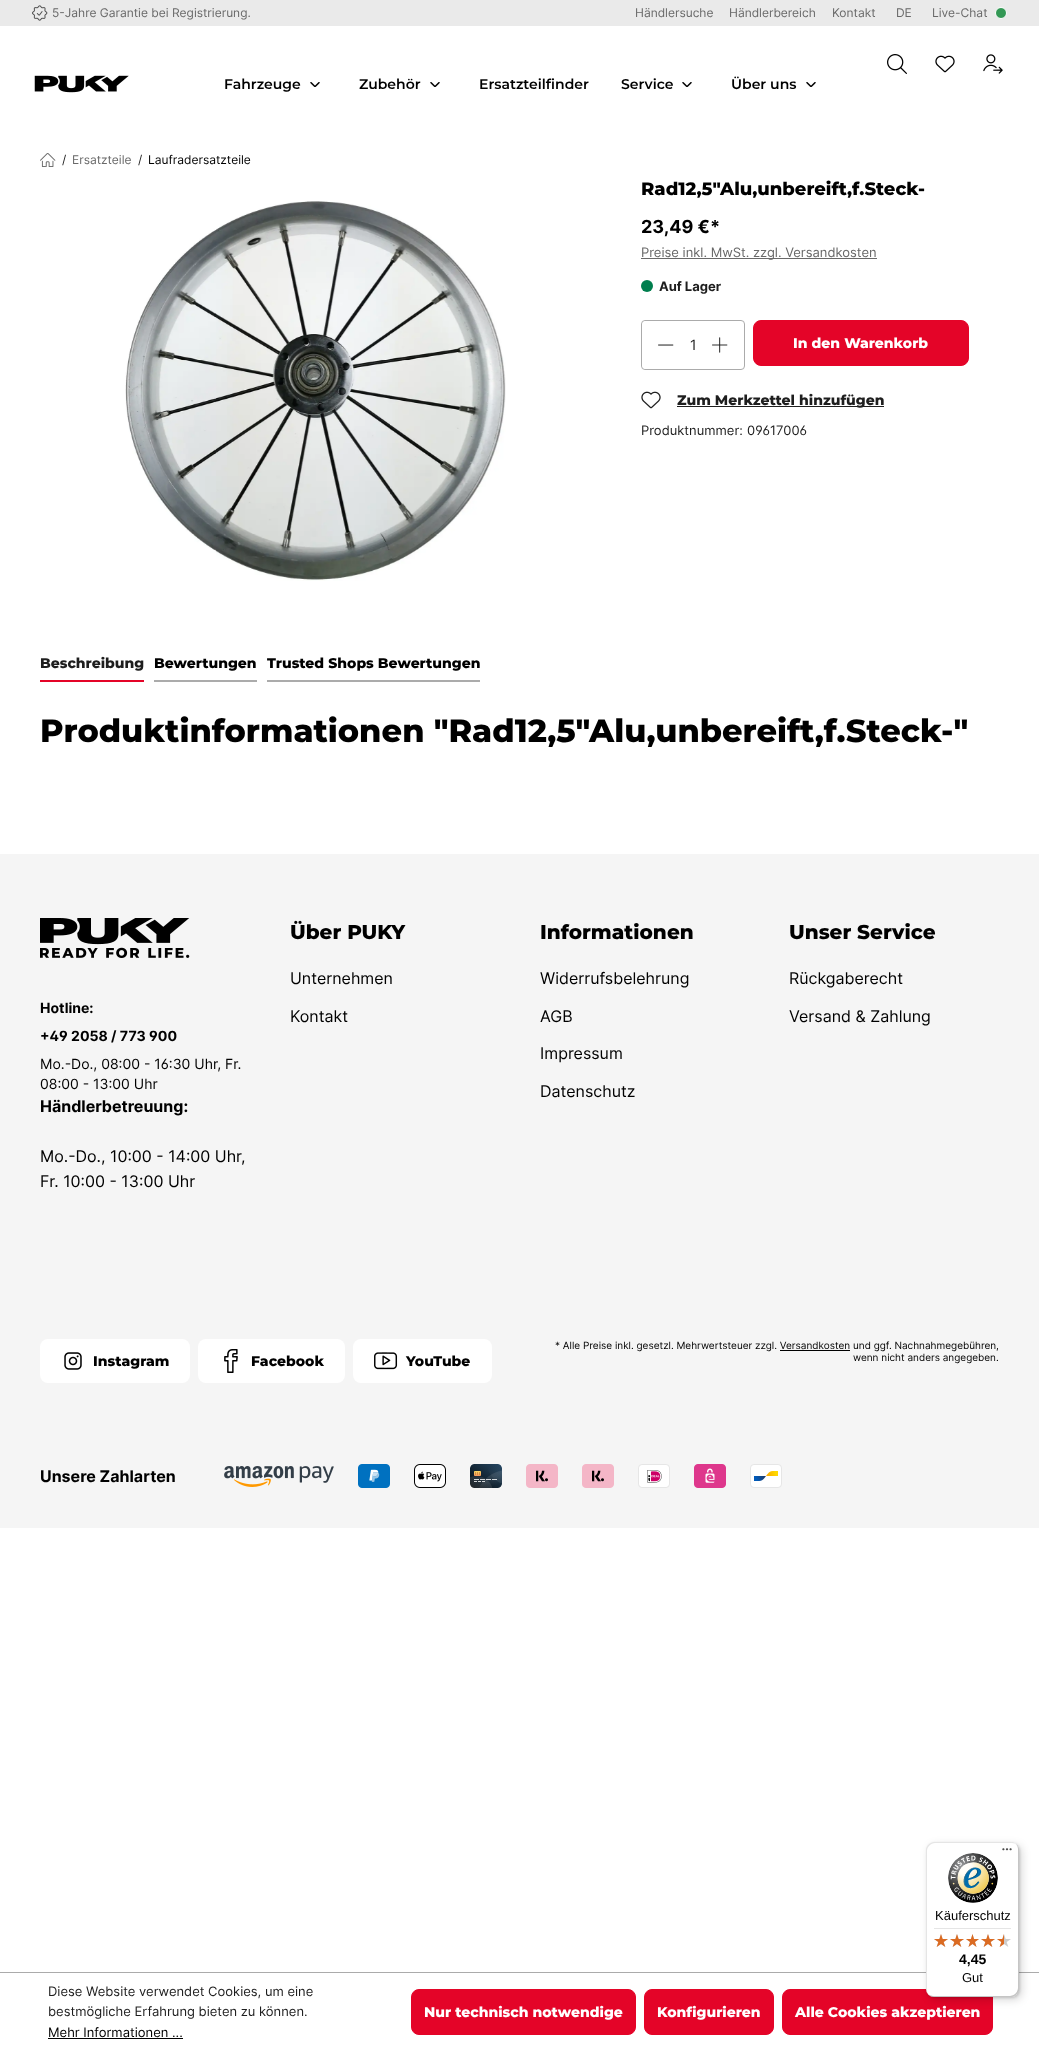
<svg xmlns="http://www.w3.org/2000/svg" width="1039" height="2051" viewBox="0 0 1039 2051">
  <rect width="100%" height="100%" fill="rgb(255,255,255)"/>
  <rect x="0" y="0" width="1039" height="26" fill="rgb(234,234,234)"/>
  <image x="32" y="5" width="16" height="16" href="pic1.png"/>
  <g font-family="Inter" font-size="12" fill="rgb(105,105,105)">
    <text x="52" y="17">5-Jahre Garantie bei Registrierung.</text>
    <text x="635" y="17">Händlersuche</text>
    <text x="729" y="17">Händlerbereich</text>
    <text x="832" y="17">Kontakt</text>
    <text x="896" y="17">DE</text>
    <text x="932" y="17">Live-Chat</text>
  </g>
  <circle cx="1001" cy="13" r="5.5" fill="rgb(51,152,85)" stroke="rgb(255,255,255)"/>
  <image x="887" y="54" width="20" height="20" href="pic2.png"/>
  <image x="935" y="55" width="20" height="18" href="pic3.png"/>
  <image x="983" y="54" width="20" height="20" href="pic4.png"/>
  <image x="34" y="75" width="95" height="18" href="pic5.png"/>
  <text x="224" y="89" font-family="Montserrat" font-size="14" font-weight="600" fill="rgb(0,0,0)">Fahrzeuge</text>
  <image x="310" y="82" width="10" height="5" href="pic6.png"/>
  <text x="359" y="89" font-family="Montserrat" font-size="14" font-weight="600" fill="rgb(0,0,0)">Zubehör</text>
  <image x="430" y="82" width="10" height="5" href="pic6.png"/>
  <g font-family="Montserrat" font-size="14" font-weight="600" fill="rgb(0,0,0)">
    <text x="479" y="89">Ersatzteilfinder</text>
    <text x="621" y="89">Service</text>
  </g>
  <image x="682" y="82" width="10" height="5" href="pic6.png"/>
  <text x="731" y="89" font-family="Montserrat" font-size="14" font-weight="600" fill="rgb(0,0,0)">Über uns</text>
  <image x="806" y="82" width="10" height="5" href="pic6.png"/>
  <image x="40" y="153" width="16" height="14" href="pic7.png"/>
  <text x="62" y="164" font-family="Inter" font-size="12" fill="rgb(30,30,30)">/</text>
  <text x="72" y="164" font-family="Inter" font-size="12" fill="rgb(105,105,105)">Ersatzteile</text>
  <text x="138" y="164" font-family="Inter" font-size="12" fill="rgb(30,30,30)">/</text>
  <text x="148" y="164" font-family="Inter" font-size="12" fill="rgb(0,0,0)">Laufradersatzteile</text>
  <image x="125" y="201" width="381" height="380" href="pic8.png"/>
  <text x="641" y="195" font-family="Montserrat" font-size="18" font-weight="100" fill="rgb(0,0,0)">Rad12,5"Alu,unbereift,f.Steck-</text>
  <text x="641" y="233" font-family="Inter" font-size="18" font-weight="bold" fill="rgb(0,0,0)">23,49 €*</text>
  <rect x="641" y="258" width="236" height="1" fill="rgb(105,105,105)"/>
  <text x="641" y="257" font-family="Inter" font-size="13" fill="rgb(105,105,105)">Preise inkl. MwSt. zzgl. Versandkosten</text>
  <circle cx="647" cy="286" r="6" fill="rgb(0,126,78)"/>
  <text x="659" y="291" font-family="Inter" font-size="13" font-weight="bold" fill="rgb(30,30,30)">Auf Lager</text>
  <rect x="641.5" y="320.5" width="103" height="49" rx="3.5" fill="none" stroke="rgb(171,171,171)"/>
  <path d="M646 321H690V369H646C644 369 642 367 642 365V325C642 323 644 321 646 321Z" fill="rgb(255,255,255)"/>
  <image x="658" y="344" width="16" height="2" href="pic9.png"/>
  <text x="690" y="350" font-family="Inter" font-size="14" fill="rgb(30,30,30)">1</text>
  <image x="712" y="337" width="16" height="16" href="pic10.png"/>
  <rect x="753.5" y="320.5" width="215" height="45" rx="7.5" fill="rgb(228,4,40)" stroke="rgb(228,4,40)"/>
  <text x="793" y="348" font-family="Montserrat" font-size="14" font-weight="100" fill="rgb(255,255,255)">In den Warenkorb</text>
  <image x="641" y="391" width="20" height="18" href="pic11.png"/>
  <rect x="677" y="406" width="207" height="1" fill="rgb(30,30,30)"/>
  <text x="677" y="405" font-family="Montserrat" font-size="14" font-weight="100" fill="rgb(30,30,30)">Zum Merkzettel hinzufügen</text>
  <text x="641" y="435" font-family="Inter" font-size="13" fill="rgb(30,30,30)">Produktnummer:</text>
  <text x="747" y="435" font-family="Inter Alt" font-size="13" fill="rgb(30,30,30)">09617006</text>
  <rect x="40" y="680" width="104" height="2" fill="rgb(228,4,40)"/>
  <text x="40" y="668" font-family="Montserrat" font-size="14" font-weight="100" fill="rgb(30,30,30)">Beschreibung</text>
  <rect x="154" y="680" width="103" height="2" fill="rgb(171,171,171)"/>
  <text x="154" y="668" font-family="Montserrat" font-size="14" font-weight="100" fill="rgb(0,0,0)">Bewertungen</text>
  <rect x="267" y="680" width="213" height="2" fill="rgb(171,171,171)"/>
  <text x="267" y="668" font-family="Montserrat" font-size="14" font-weight="100" fill="rgb(0,0,0)">Trusted Shops Bewertungen</text>
  <text x="40" y="742" font-family="Montserrat" font-size="32" font-weight="100" fill="rgb(0,0,0)">Produktinformationen "Rad12,5"Alu,unbereift,f.Steck-"</text>
  <rect x="0" y="854" width="1039" height="674" fill="rgb(245,245,245)"/>
  <text x="290" y="939" font-family="Montserrat" font-size="20" font-weight="100" fill="rgb(0,0,0)">Über PUKY</text>
  <g font-family="Inter" font-size="16" fill="rgb(0,0,0)">
    <text x="290" y="984">Unternehmen</text>
    <text x="290" y="1022">Kontakt</text>
  </g>
  <text x="540" y="939" font-family="Montserrat" font-size="20" font-weight="100" fill="rgb(0,0,0)">Informationen</text>
  <g font-family="Inter" font-size="16" fill="rgb(0,0,0)">
    <text x="540" y="984">Widerrufsbelehrung</text>
    <text x="540" y="1022">AGB</text>
    <text x="540" y="1059">Impressum</text>
    <text x="540" y="1097">Datenschutz</text>
  </g>
  <text x="789" y="939" font-family="Montserrat" font-size="20" font-weight="100" fill="rgb(0,0,0)">Unser Service</text>
  <g font-family="Inter" font-size="16" fill="rgb(0,0,0)">
    <text x="789" y="984">Rückgaberecht</text>
    <text x="789" y="1022">Versand &amp; Zahlung</text>
  </g>
  <image x="40" y="918" width="150" height="40" href="pic12.png"/>
  <text x="40" y="1013" font-family="Inter" font-size="14" font-weight="bold" fill="rgb(0,0,0)">Hotline:</text>
  <text x="40" y="1041" font-family="Inter Alt" font-size="14" font-weight="bold" fill="rgb(0,0,0)">+49 2058 / 773 900</text>
  <text x="40" y="1069" font-family="Inter Alt" font-size="14" fill="rgb(0,0,0)">Mo.-Do., 08:00 - 16:30 Uhr, Fr.</text>
  <text x="40" y="1089" font-family="Inter" font-size="14" fill="rgb(0,0,0)">08:00 - 13:00 Uhr</text>
  <text x="40" y="1112" font-family="Inter" font-size="16" font-weight="bold" fill="rgb(0,0,0)">Händlerbetreuung:</text>
  <g font-family="Inter" font-size="16" fill="rgb(0,0,0)">
    <text>
      <tspan x="40" y="1162">Mo.-Do., 10:00 - 14:00 Uhr,</tspan>
      <tspan x="40" y="1187">Fr. 10:00 - 13:00 Uhr</tspan>
    </text>
  </g>
  <rect x="40" y="1339" width="150" height="44" rx="8" fill="rgb(255,255,255)"/>
  <image x="64" y="1352" width="18" height="18" href="pic13.png"/>
  <text x="93" y="1366" font-family="Montserrat" font-size="14" font-weight="100" fill="rgb(0,0,0)">Instagram</text>
  <rect x="198" y="1339" width="147" height="44" rx="8" fill="rgb(255,255,255)"/>
  <image x="224" y="1349" width="14" height="24" href="pic14.png"/>
  <text x="251" y="1366" font-family="Montserrat" font-size="14" font-weight="100" fill="rgb(0,0,0)">Facebook</text>
  <rect x="353" y="1339" width="139" height="44" rx="8" fill="rgb(255,255,255)"/>
  <image x="374" y="1352" width="24" height="18" href="pic15.png"/>
  <text x="406" y="1366" font-family="Montserrat" font-size="14" font-weight="100" fill="rgb(0,0,0)">YouTube</text>
  <text x="555" y="1349" font-family="Inter" font-size="10" fill="rgb(0,0,0)">* Alle Preise inkl. gesetzl. Mehrwertsteuer zzgl. Versandkosten und ggf. Nachnahmegebühren,</text>
  <rect x="780" y="1350" width="70" height="1" fill="rgb(0,0,0)"/>
  <text x="853" y="1361" font-family="Inter" font-size="10" fill="rgb(0,0,0)">wenn nicht anders angegeben.</text>
  <text x="40" y="1482" font-family="Inter" font-size="16" font-weight="bold" fill="rgb(0,0,0)">Unsere Zahlarten</text>
  <image x="224" y="1466" width="110" height="21" href="pic16.png"/>
  <image x="358" y="1464" width="32" height="24" href="pic17.png"/>
  <image x="414" y="1464" width="32" height="24" href="pic18.png"/>
  <image x="470" y="1464" width="32" height="24" href="pic19.png"/>
  <image x="526" y="1464" width="32" height="24" href="pic20.png"/>
  <image x="582" y="1464" width="32" height="24" href="pic20.png"/>
  <image x="638" y="1464" width="32" height="24" href="pic21.png"/>
  <image x="694" y="1464" width="32" height="24" href="pic22.png"/>
  <image x="750" y="1464" width="32" height="24" href="pic23.png"/>
  <rect x="0" y="1972" width="1039" height="1" fill="rgb(171,171,171)"/>
  <rect x="782.5" y="1989.5" width="210" height="45" rx="7.5" fill="rgb(228,4,40)" stroke="rgb(228,4,40)"/>
  <rect x="929" y="1845" width="93" height="155" rx="8" fill="rgba(0,0,0,0.15)" filter="blur(4px)"/>
  <rect x="927" y="1843" width="93" height="155" rx="8" fill="rgba(0,0,0,0.15)" filter="blur(1px)"/>
  <rect x="926" y="1842" width="93" height="155" rx="8" fill="rgb(255,255,255)"/>
  <path d="M935 1843H1012C1014 1843 1016 1844 1018 1846C1016 1844 1014 1842 1011 1842H934C930 1842 926 1846 926 1850V1989C926 1992 928 1994 930 1996C928 1994 927 1992 927 1990V1851C927 1847 931 1843 935 1843Z" fill="rgba(0,0,0,0.1)"/>
  <path d="M927 1993C929 1995 931 1997 934 1997H1011C1015 1997 1019 1993 1019 1989V1850C1019 1847 1017 1845 1015 1843C1017 1845 1018 1847 1018 1849V1988C1018 1992 1014 1996 1010 1996H933C931 1996 929 1995 927 1993Z" fill="rgba(0,0,0,0.2)"/>
  <path d="M928 1994C929 1996 932 1997 934 1997H1011C1015 1997 1019 1993 1019 1989V1850C1019 1848 1018 1845 1016 1844C1017 1845 1018 1847 1018 1849V1988C1018 1993 1015 1996 1010 1996H933C931 1996 929 1995 928 1994Z" fill="rgba(50,50,50,0.2)"/>
  <path d="M1018 1850C1018 1845 1015 1842 1010 1842H1011C1015 1842 1019 1846 1019 1850V1989C1019 1993 1015 1997 1011 1997H934C930 1997 926 1993 926 1989V1988C926 1993 929 1996 934 1996H1010C1015 1996 1018 1993 1018 1988Z" fill="rgba(255,255,255,0.3)"/>
  <image x="1002" y="1848" width="10" height="3" href="pic24.png"/>
  <image x="948" y="1853" width="50" height="50" href="pic25.png"/>
  <text x="935" y="1920" font-family="Liberation Sans" font-size="13" fill="rgb(0,0,0)">Käuferschutz</text>
  <rect x="934" y="1928" width="77" height="1" fill="rgb(229,229,229)"/>
  <image x="934" y="1934" width="14" height="13" href="pic26.png"/>
  <image x="950" y="1934" width="14" height="13" href="pic26.png"/>
  <image x="966" y="1934" width="13" height="13" href="pic27.png"/>
  <image x="981" y="1934" width="14" height="13" href="pic26.png"/>
  <image x="997" y="1934" width="14" height="13" href="pic26.png"/>
  <image x="934" y="1934" width="14" height="13" href="pic28.png"/>
  <image x="950" y="1934" width="14" height="13" href="pic28.png"/>
  <image x="966" y="1934" width="13" height="13" href="pic29.png"/>
  <image x="981" y="1934" width="14" height="13" href="pic28.png"/>
  <image x="997" y="1934" width="7" height="13" href="pic30.png"/>
  <text x="959" y="1964" font-family="Liberation Sans" font-size="14" font-weight="bold" fill="rgb(0,0,0)">4,45</text>
  <text x="962" y="1982" font-family="Liberation Sans" font-size="13" fill="rgb(0,0,0)">Gut</text>
  <g font-family="Inter" font-size="13" fill="rgb(30,30,30)">
    <text>
      <tspan x="48" y="1996">Diese Website verwendet Cookies, um eine</tspan>
      <tspan x="48" y="2016">bestmögliche Erfahrung bieten zu können.</tspan>
    </text>
  </g>
  <text x="48" y="2037" font-family="Inter" font-size="13" fill="rgb(0,0,0)">Mehr Informationen ...</text>
  <rect x="48" y="2038" width="135" height="1" fill="rgb(0,0,0)"/>
  <rect x="411.5" y="1989.5" width="224" height="45" rx="7.5" fill="rgb(228,4,40)" stroke="rgb(228,4,40)"/>
  <text x="424" y="2017" font-family="Montserrat" font-size="14" font-weight="100" fill="rgb(255,255,255)">Nur technisch notwendige</text>
  <rect x="644.5" y="1989.5" width="129" height="45" rx="7.5" fill="rgb(228,4,40)" stroke="rgb(228,4,40)"/>
  <g font-family="Montserrat" font-size="14" font-weight="100" fill="rgb(255,255,255)">
    <text x="657" y="2017">Konfigurieren</text>
    <text x="795" y="2017">Alle Cookies akzeptieren</text>
  </g>
</svg>
